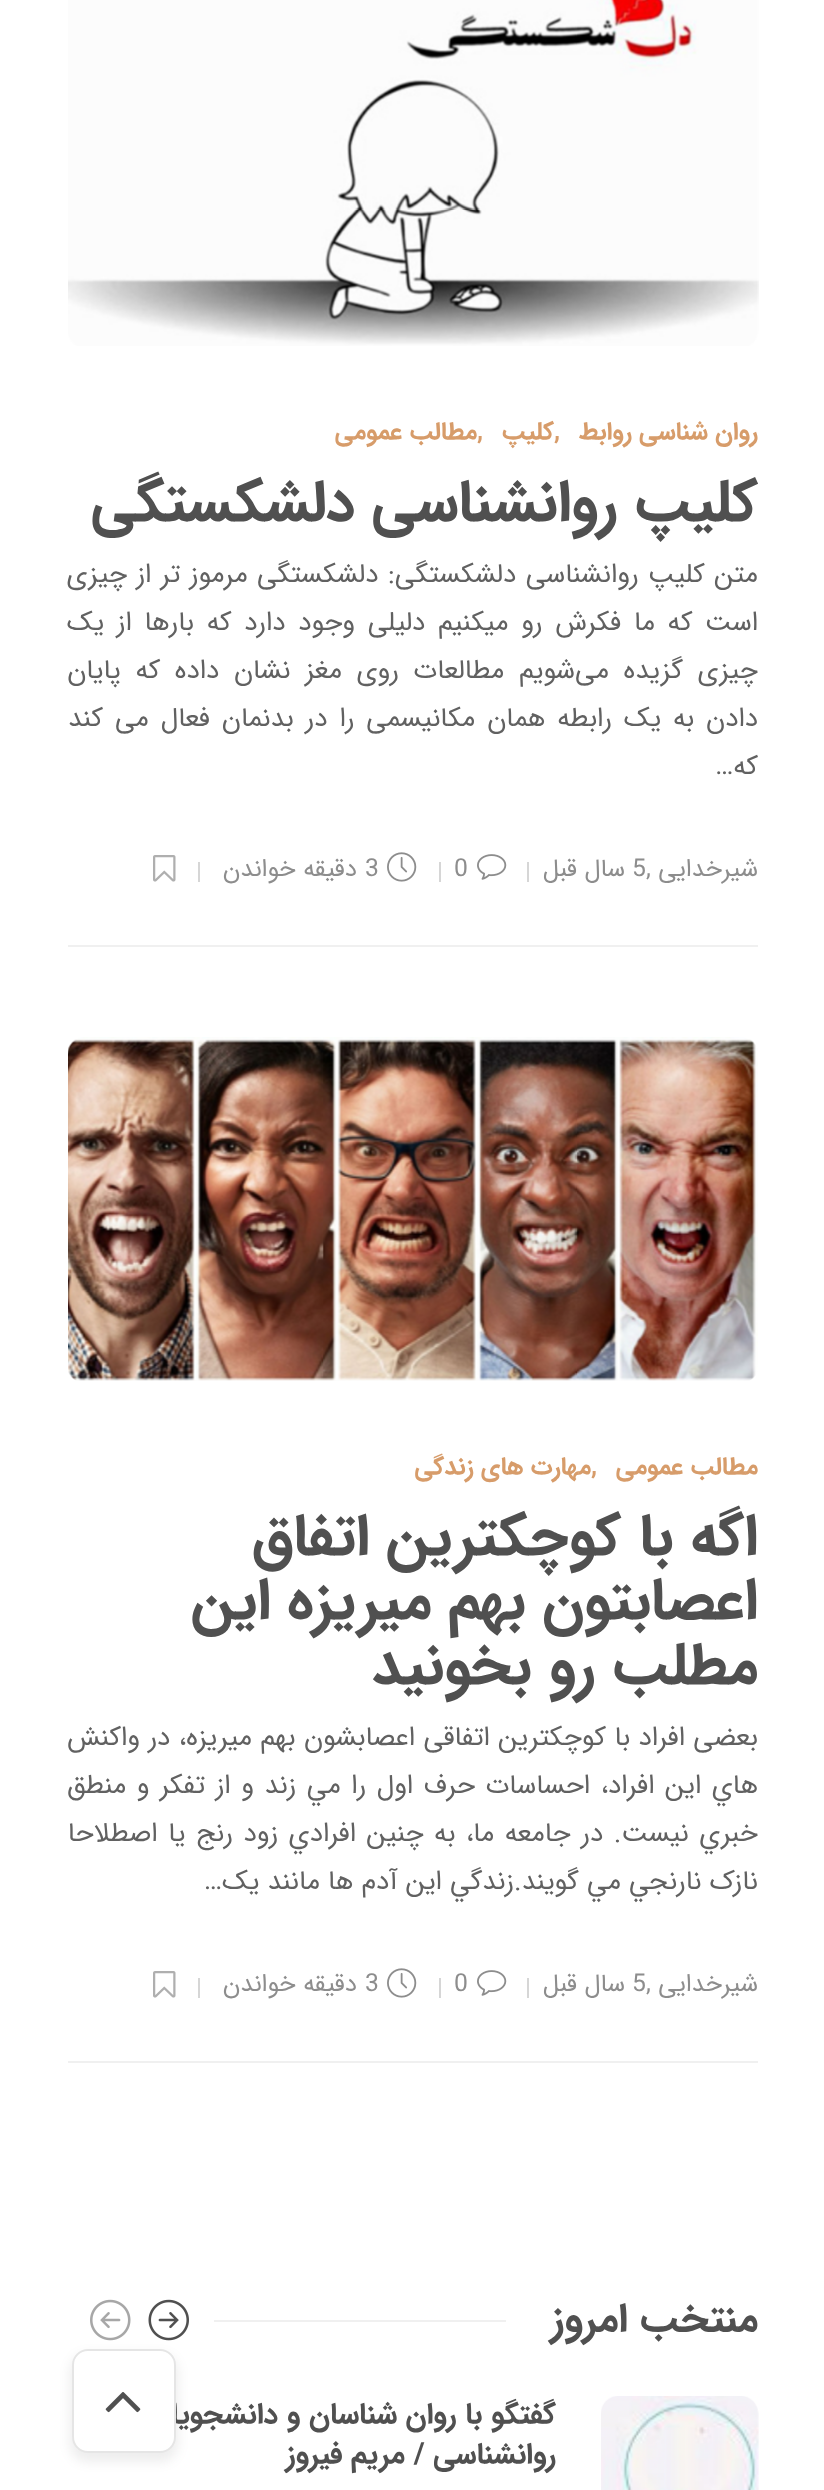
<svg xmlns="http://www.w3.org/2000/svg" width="824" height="2490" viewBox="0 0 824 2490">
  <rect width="100%" height="100%" fill="rgb(255,255,255)"/>
  <rect x="68" y="945" width="690" height="2" fill="rgb(240,240,240)"/>
  <image x="68" y="0" width="691" height="346" href="pic1.png"/>
  <text x="758" y="439" font-family="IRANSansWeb" font-size="24.75" font-weight="bold" direction="rtl" fill="rgb(215,156,106)">روان شناسی روابط</text>
  <text x="554" y="439" font-family="IRANSansWeb" font-size="24.75" font-weight="bold" fill="rgb(215,156,106)">,</text>
  <text x="554" y="439" font-family="IRANSansWeb" font-size="24.75" font-weight="bold" direction="rtl" fill="rgb(215,156,106)">کلیپ</text>
  <text x="477" y="439" font-family="IRANSansWeb" font-size="24.75" font-weight="bold" fill="rgb(215,156,106)">,</text>
  <text x="477" y="439" font-family="IRANSansWeb" font-size="24.75" font-weight="bold" direction="rtl" fill="rgb(215,156,106)">مطالب عمومی</text>
  <text x="758" y="520" font-family="IRANSansWeb" font-size="58.5" font-weight="bold" direction="rtl" fill="rgb(80,80,80)">کلیپ روانشناسی دلشکستگی</text>
  <g font-family="IRANSansWeb" font-size="27" direction="rtl" fill="rgb(97,97,97)">
    <text>
      <tspan x="758" y="582" word-spacing="1.25">متن کلیپ روانشناسی دلشکستگی: دلشکستگی مرموز تر از چیزی</tspan>
      <tspan x="758" y="630" word-spacing="4.5">است که ما فکرش رو میکنیم دلیلی وجود دارد که بارها از یک</tspan>
      <tspan x="758" y="678" word-spacing="6.5">چیزی گزیده می‌شویم مطالعات روی مغز نشان داده که پایان</tspan>
      <tspan x="758" y="726" word-spacing="3.75">دادن به یک رابطه همان مکانیسمی را در بدنمان فعال می کند</tspan>
      <tspan x="758" y="774">که…</tspan>
    </text>
  </g>
  <text x="758" y="876" font-family="IRANSansWeb" font-size="24.75" direction="rtl" fill="rgb(141,141,141)">شیرخدایی</text>
  <g font-family="IRANSansWeb" font-size="24.75" fill="rgb(141,141,141)">
    <text x="646" y="876">,</text>
    <text x="632" y="876">5</text>
  </g>
  <text x="625" y="876" font-family="IRANSansWeb" font-size="24.75" direction="rtl" fill="rgb(141,141,141)">سال قبل</text>
  <rect x="527" y="862" width="2" height="20" fill="rgb(214,214,214)"/>
  <image x="477" y="854" width="30" height="26" href="pic2.png"/>
  <text x="454" y="876" font-family="IRANSansWeb" font-size="24.75" fill="rgb(141,141,141)">0</text>
  <rect x="439" y="862" width="2" height="20" fill="rgb(214,214,214)"/>
  <image x="387" y="852" width="30" height="30" href="pic3.png"/>
  <text x="365" y="876" font-family="IRANSansWeb" font-size="24.75" fill="rgb(141,141,141)">3</text>
  <text x="357" y="876" font-family="IRANSansWeb" font-size="24.75" direction="rtl" fill="rgb(141,141,141)">دقیقه خواندن</text>
  <rect x="198" y="862" width="2" height="20" fill="rgb(214,214,214)"/>
  <image x="153" y="855" width="23" height="27" href="pic4.png"/>
  <rect x="68" y="2061" width="690" height="2" fill="rgb(240,240,240)"/>
  <image x="68" y="1037" width="690" height="344" href="pic5.png"/>
  <text x="758" y="1474" font-family="IRANSansWeb" font-size="24.75" font-weight="bold" direction="rtl" fill="rgb(215,156,106)">مطالب عمومی</text>
  <text x="591" y="1474" font-family="IRANSansWeb" font-size="24.75" font-weight="bold" fill="rgb(215,156,106)">,</text>
  <text x="591" y="1474" font-family="IRANSansWeb" font-size="24.75" font-weight="bold" direction="rtl" fill="rgb(215,156,106)">مهارت های زندگی</text>
  <g font-family="IRANSansWeb" font-size="58.5" font-weight="bold" direction="rtl" fill="rgb(80,80,80)">
    <text>
      <tspan x="758" y="1554">اگه با کوچکترین اتفاق</tspan>
      <tspan x="758" y="1618">اعصابتون بهم میریزه این</tspan>
      <tspan x="758" y="1683">مطلب رو بخونید</tspan>
    </text>
  </g>
  <g font-family="IRANSansWeb" font-size="27" direction="rtl" fill="rgb(97,97,97)">
    <text>
      <tspan x="758" y="1745" word-spacing="0.25">بعضی افراد با کوچکترین اتفاقی اعصابشون بهم میریزه، در واکنش</tspan>
      <tspan x="758" y="1793" word-spacing="2.4">هاي اين افراد، احساسات حرف اول را مي زند و از تفکر و منطق</tspan>
      <tspan x="758" y="1841" word-spacing="2.4">خبري نيست. در جامعه ما، به چنين افرادي زود رنج يا اصطلاحا</tspan>
      <tspan x="758" y="1889">نازک نارنجي مي گويند.زندگي اين آدم ها مانند يک…</tspan>
    </text>
  </g>
  <text x="758" y="1991" font-family="IRANSansWeb" font-size="24.75" direction="rtl" fill="rgb(141,141,141)">شیرخدایی</text>
  <g font-family="IRANSansWeb" font-size="24.75" fill="rgb(141,141,141)">
    <text x="646" y="1991">,</text>
    <text x="632" y="1991">5</text>
  </g>
  <text x="625" y="1991" font-family="IRANSansWeb" font-size="24.75" direction="rtl" fill="rgb(141,141,141)">سال قبل</text>
  <rect x="527" y="1978" width="2" height="20" fill="rgb(214,214,214)"/>
  <image x="477" y="1970" width="30" height="26" href="pic2.png"/>
  <text x="454" y="1991" font-family="IRANSansWeb" font-size="24.75" fill="rgb(141,141,141)">0</text>
  <rect x="439" y="1978" width="2" height="20" fill="rgb(214,214,214)"/>
  <image x="387" y="1968" width="30" height="30" href="pic3.png"/>
  <text x="365" y="1991" font-family="IRANSansWeb" font-size="24.75" fill="rgb(141,141,141)">3</text>
  <text x="357" y="1991" font-family="IRANSansWeb" font-size="24.75" direction="rtl" fill="rgb(141,141,141)">دقیقه خواندن</text>
  <rect x="198" y="1978" width="2" height="20" fill="rgb(214,214,214)"/>
  <image x="153" y="1971" width="23" height="27" href="pic4.png"/>
  <text x="758" y="2331" font-family="IRANSansWeb" font-size="40.5" font-weight="bold" direction="rtl" fill="rgb(80,80,80)">منتخب امروز</text>
  <rect x="214" y="2320" width="292" height="2" fill="rgb(240,240,240)"/>
  <image x="148" y="2299" width="41" height="42" href="pic6.png"/>
  <image x="90" y="2299" width="41" height="42" href="pic7.png"/>
  <image x="601" y="2396" width="158" height="94" href="pic8.png"/>
  <g font-family="IRANSansWeb" font-size="29.25" font-weight="bold" direction="rtl" fill="rgb(80,80,80)">
    <text>
      <tspan x="556" y="2423">گفتگو با روان شناسان و دانشجویان</tspan>
      <tspan x="556" y="2463">روانشناسی / مریم فیروز</tspan>
    </text>
  </g>
  <rect x="70" y="2354" width="108" height="108" rx="18" fill="rgba(0,0,0,0.07)" filter="blur(6px)"/>
  <rect x="72" y="2349" width="104" height="104" rx="16" fill="rgb(255,255,255)"/>
  <rect x="73" y="2350" width="102" height="102" rx="15" fill="none" stroke="rgba(0,0,0,0.1)" stroke-width="2"/>
  <image x="105" y="2392" width="36" height="21" href="pic9.png"/>
</svg>
